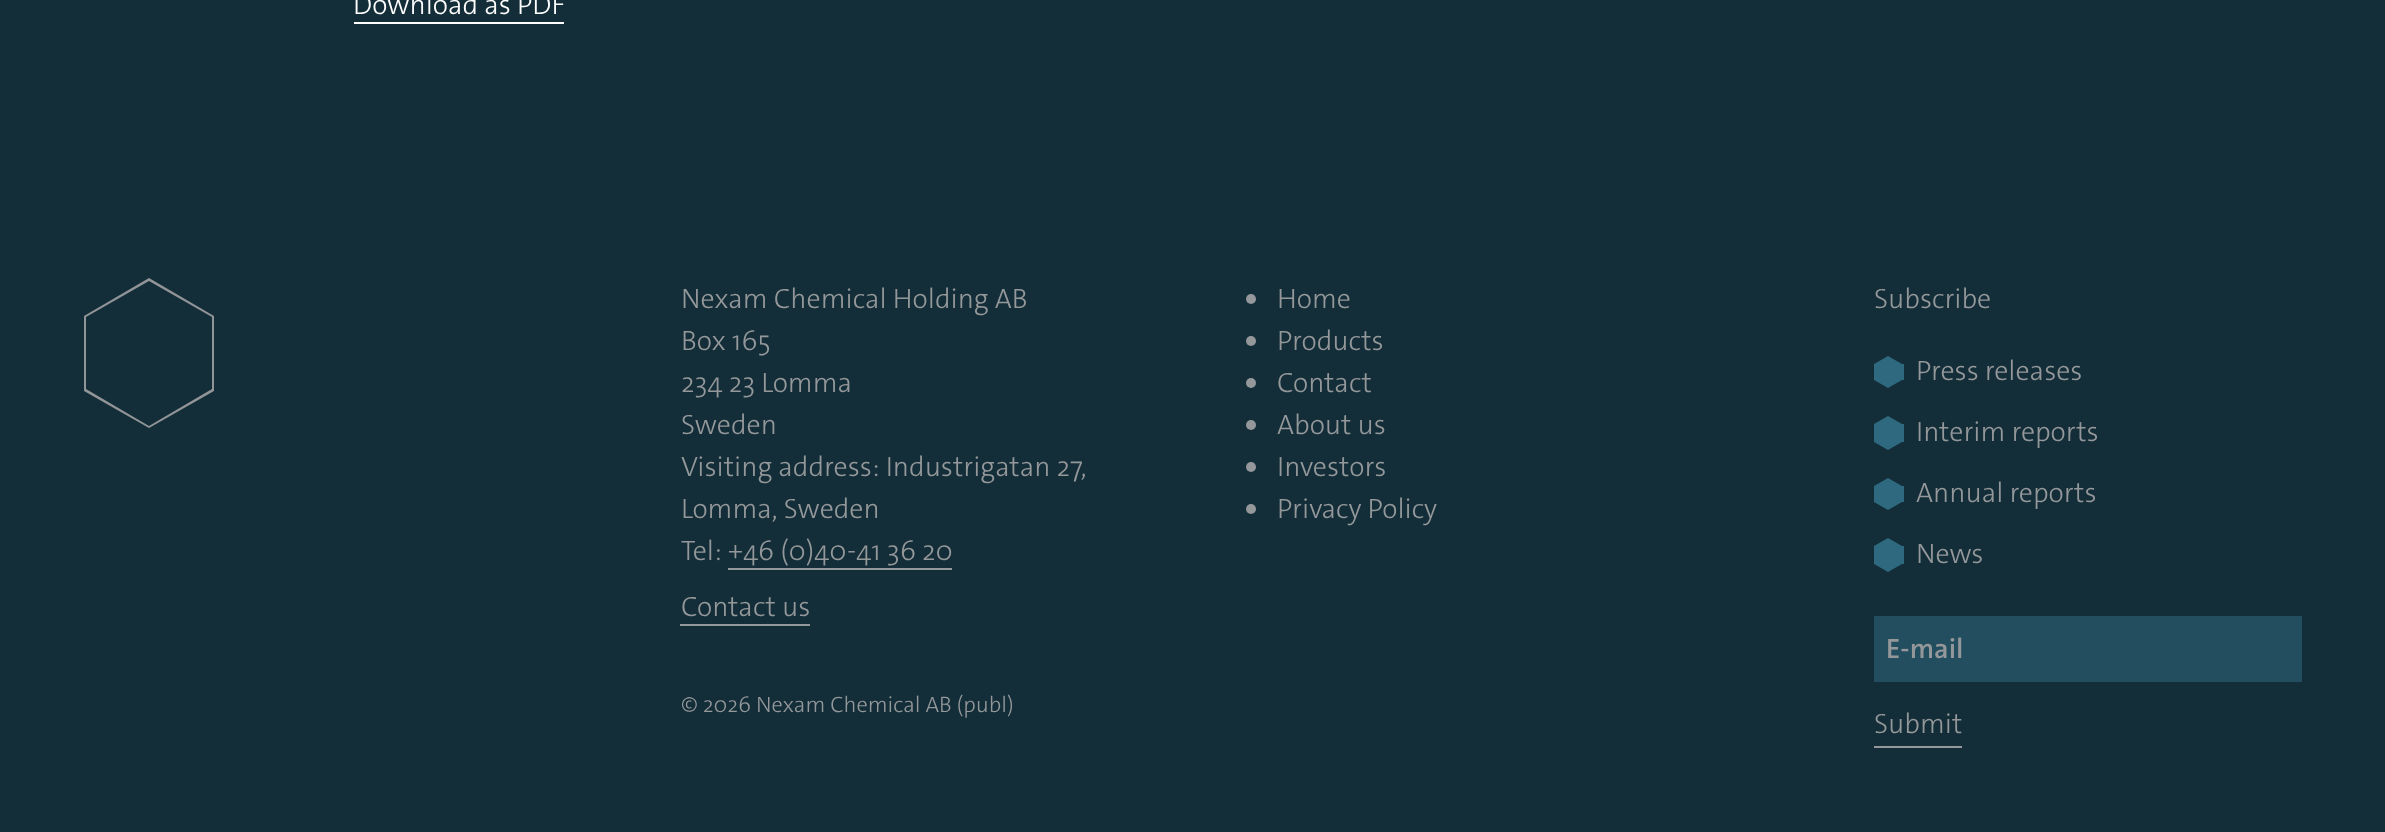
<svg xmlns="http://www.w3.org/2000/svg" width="2385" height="832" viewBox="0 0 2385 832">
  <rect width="100%" height="100%" fill="rgb(19,46,57)"/>
  <text x="353" y="14" font-family="'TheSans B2'" font-size="28" font-weight="300" fill="rgb(255,255,255)">Download as PDF</text>
  <rect x="354" y="22" width="210" height="2" fill="rgb(255,255,255)"/>
  <path d="M149 428L84 391V316L149 278L214 316V391ZM86 389L149 426L212 389V317L149 281L86 317Z" fill="rgb(146,149,152)"/>
  <g font-family="'TheSans B2'" font-size="28" font-weight="300" fill="rgb(149,152,154)">
    <text>
      <tspan x="681" y="308">Nexam Chemical Holding AB</tspan>
      <tspan x="681" y="350">Box 165</tspan>
      <tspan x="681" y="392">234 23 Lomma</tspan>
      <tspan x="681" y="434">Sweden</tspan>
      <tspan x="681" y="476">Visiting address: Industrigatan 27,</tspan>
      <tspan x="681" y="518">Lomma, Sweden</tspan>
      <tspan x="681" y="560">Tel: +46 (0)40-41 36 20</tspan>
    </text>
  </g>
  <rect x="728" y="568" width="224" height="2" fill="rgb(149,152,154)"/>
  <text x="681" y="616" font-family="'TheSans B2'" font-size="28" font-weight="300" fill="rgb(149,152,154)">Contact us</text>
  <rect x="680" y="624" width="130" height="2" fill="rgb(149,152,154)"/>
  <text x="681" y="712" font-family="'TheSans B2'" font-size="22.4" font-weight="300" fill="rgb(149,152,154)">© 2026 Nexam Chemical AB (publ)</text>
  <circle cx="1251" cy="299" r="5" fill="rgb(149,152,154)"/>
  <text x="1277" y="308" font-family="'TheSans B2'" font-size="28" font-weight="300" fill="rgb(149,152,154)">Home</text>
  <circle cx="1251" cy="341" r="5" fill="rgb(149,152,154)"/>
  <text x="1277" y="350" font-family="'TheSans B2'" font-size="28" font-weight="300" fill="rgb(149,152,154)">Products</text>
  <circle cx="1251" cy="383" r="5" fill="rgb(149,152,154)"/>
  <text x="1277" y="392" font-family="'TheSans B2'" font-size="28" font-weight="300" fill="rgb(149,152,154)">Contact</text>
  <circle cx="1251" cy="425" r="5" fill="rgb(149,152,154)"/>
  <text x="1277" y="434" font-family="'TheSans B2'" font-size="28" font-weight="300" fill="rgb(149,152,154)">About us</text>
  <circle cx="1251" cy="467" r="5" fill="rgb(149,152,154)"/>
  <text x="1277" y="476" font-family="'TheSans B2'" font-size="28" font-weight="300" fill="rgb(149,152,154)">Investors</text>
  <circle cx="1251" cy="509" r="5" fill="rgb(149,152,154)"/>
  <g font-family="'TheSans B2'" font-size="28" font-weight="300" fill="rgb(149,152,154)">
    <text x="1277" y="518">Privacy Policy</text>
    <text x="1874" y="308">Subscribe</text>
  </g>
  <rect x="1874" y="364" width="30" height="16" fill="rgb(47,105,127)"/>
  <path d="M1902 364H1874L1888 356ZM1874 380H1902L1888 388Z" fill="rgb(47,105,127)"/>
  <text x="1916" y="380" font-family="'TheSans B2'" font-size="28" font-weight="300" fill="rgb(149,152,154)">Press releases</text>
  <rect x="1874" y="424" width="30" height="18" fill="rgb(47,105,127)"/>
  <path d="M1902 424H1874L1888 416ZM1874 442H1902L1888 450Z" fill="rgb(47,105,127)"/>
  <text x="1916" y="441" font-family="'TheSans B2'" font-size="28" font-weight="300" fill="rgb(149,152,154)">Interim reports</text>
  <rect x="1874" y="486" width="30" height="16" fill="rgb(47,105,127)"/>
  <path d="M1902 486H1874L1888 478ZM1874 502H1902L1888 510Z" fill="rgb(47,105,127)"/>
  <text x="1916" y="502" font-family="'TheSans B2'" font-size="28" font-weight="300" fill="rgb(149,152,154)">Annual reports</text>
  <rect x="1874" y="546" width="30" height="18" fill="rgb(47,105,127)"/>
  <path d="M1902 546H1874L1888 538ZM1874 564H1902L1888 572Z" fill="rgb(47,105,127)"/>
  <text x="1916" y="563" font-family="'TheSans B2'" font-size="28" font-weight="300" fill="rgb(149,152,154)">News</text>
  <rect x="1874" y="616" width="428" height="66" fill="rgb(34,78,95)"/>
  <text x="1886" y="658" font-family="'TheSans B2'" font-size="28" font-weight="600" fill="rgb(149,152,154)">E-mail</text>
  <rect x="1874" y="746" width="88" height="2" fill="rgb(149,152,154)"/>
  <text x="1874" y="733" font-family="'TheSans B2'" font-size="28" font-weight="300" fill="rgb(149,152,154)">Submit</text>
</svg>
